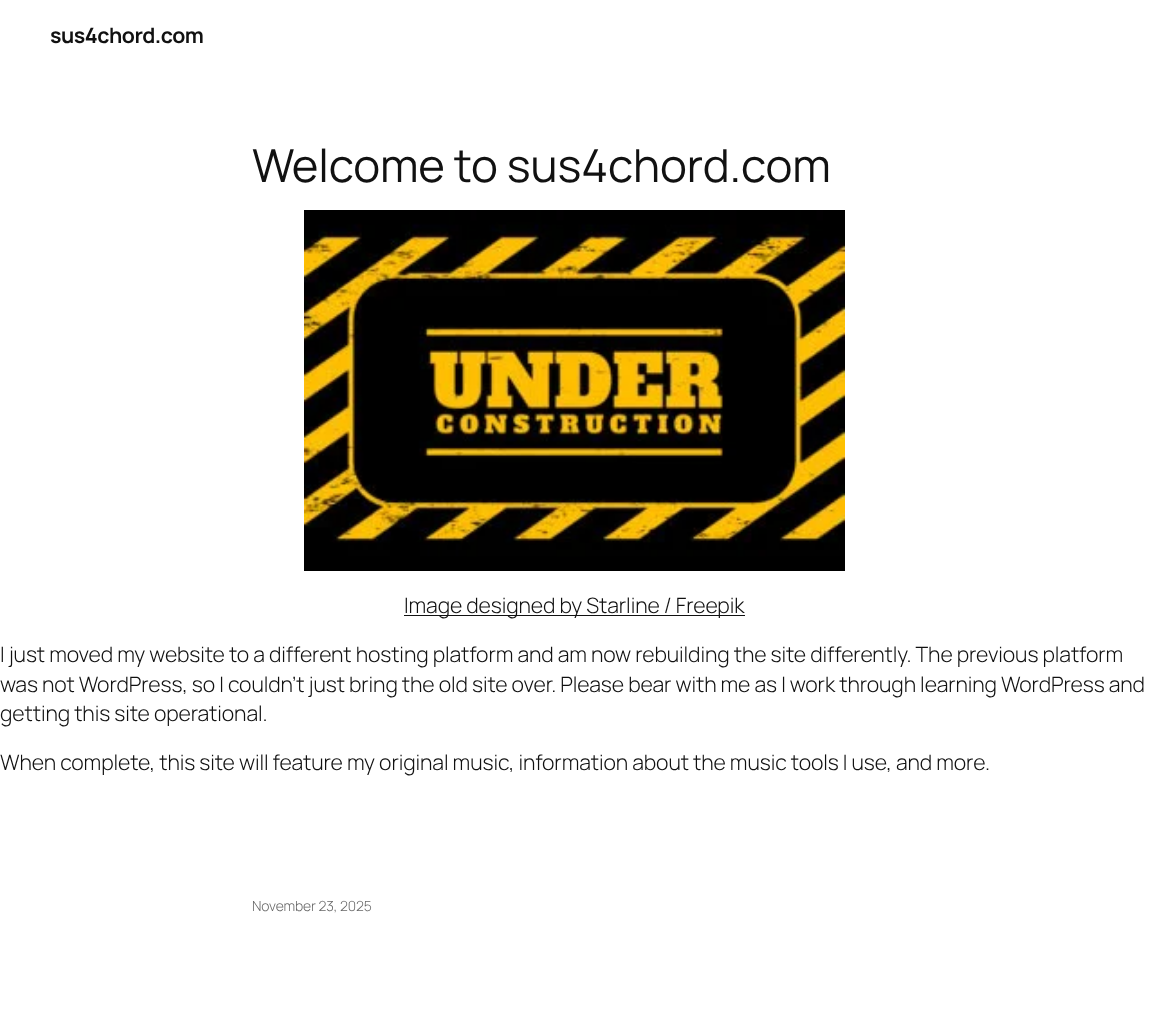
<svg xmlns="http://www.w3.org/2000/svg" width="1149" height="1026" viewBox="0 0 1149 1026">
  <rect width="100%" height="100%" fill="rgb(255,255,255)"/>
  <text x="50" y="43" font-family="Manrope" font-size="21.25" font-weight="bold" letter-spacing="-0.5" fill="rgb(17,17,17)">sus4chord.com</text>
  <text x="252" y="182" font-family="Manrope" font-size="45.5" letter-spacing="-0.1" fill="rgb(17,17,17)">Welcome to sus4chord.com</text>
  <image x="304" y="210" width="541" height="361" href="pic1.png"/>
  <rect x="404" y="615" width="341" height="1" fill="rgb(17,17,17)"/>
  <g font-family="Manrope" font-size="21.25" font-weight="300" letter-spacing="-0.1" fill="rgb(17,17,17)">
    <text x="404" y="613">Image designed by Starline / Freepik</text>
    <text>
      <tspan x="0" y="662">I just moved my website to a different hosting platform and am now rebuilding the site differently. The previous platform</tspan>
      <tspan x="0" y="692">was not WordPress, so I couldn’t just bring the old site over. Please bear with me as I work through learning WordPress and</tspan>
      <tspan x="0" y="721">getting this site operational.</tspan>
    </text>
    <text x="0" y="770">When complete, this site will feature my original music, information about the music tools I use, and more.</text>
  </g>
  <text x="252" y="911" font-family="Manrope" font-size="14" font-weight="300" letter-spacing="-0.1" fill="rgb(104,104,104)">November 23, 2025</text>
</svg>
